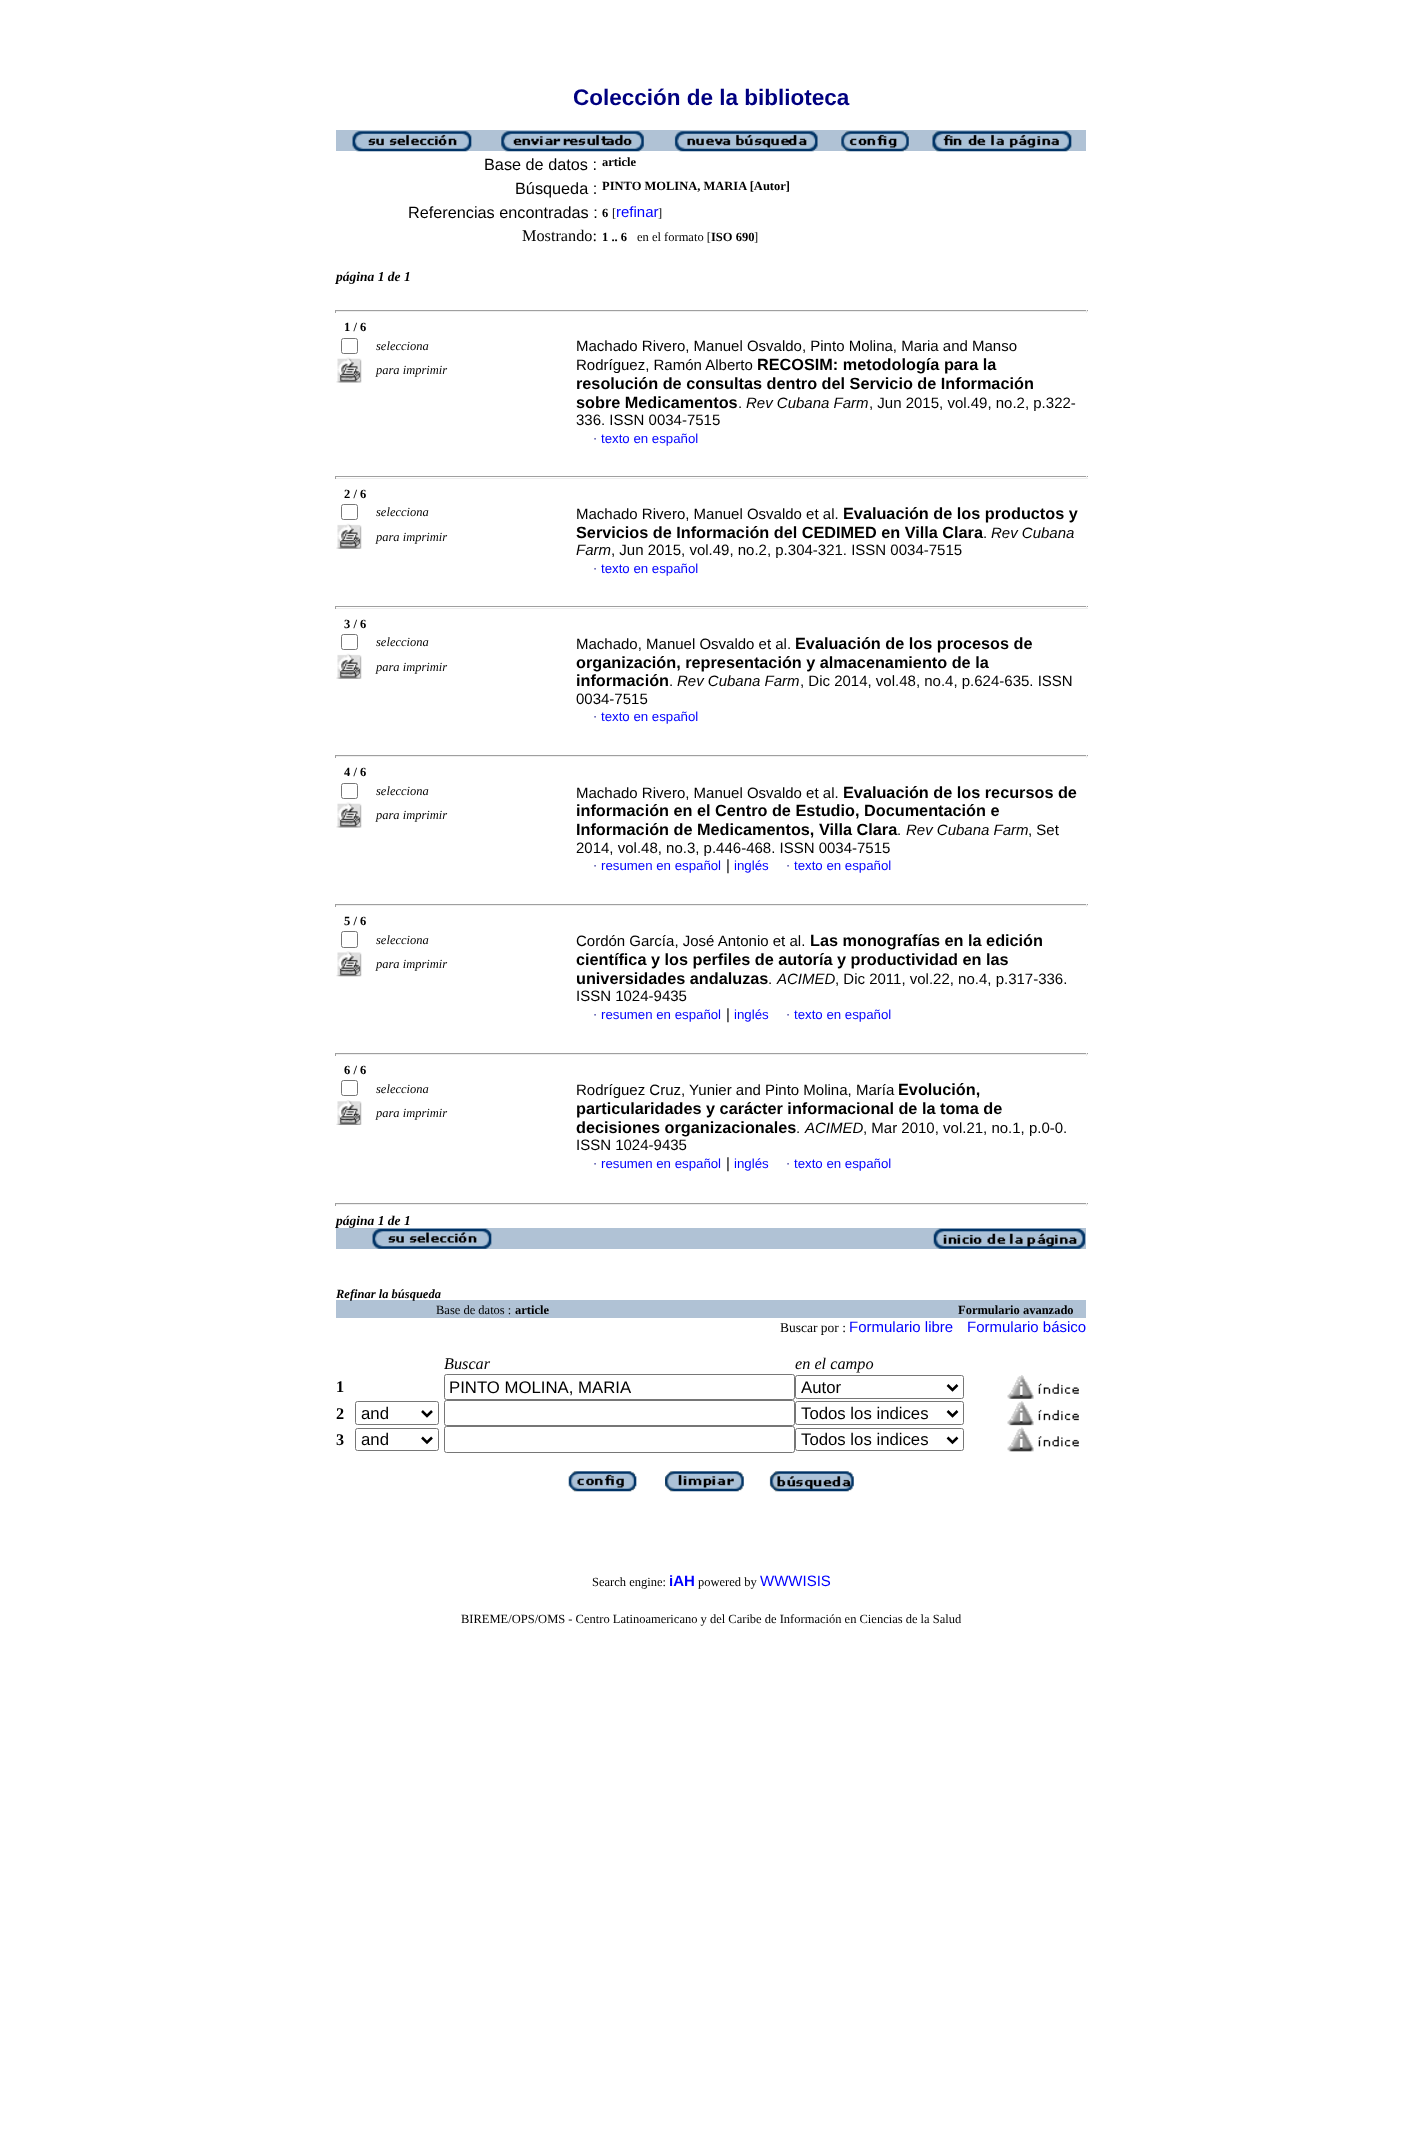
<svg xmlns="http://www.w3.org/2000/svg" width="1422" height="2132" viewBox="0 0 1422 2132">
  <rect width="100%" height="100%" fill="rgb(255,255,255)"/>
  <text x="573" y="105" font-family="Liberation Sans" font-size="22.5" font-weight="bold" fill="rgb(0,0,128)">Colección de la biblioteca</text>
  <rect x="336" y="130" width="750" height="21" fill="rgb(176,194,213)"/>
  <image x="352" y="131" width="120" height="21" href="pic1.png"/>
  <image x="501" y="131" width="143" height="21" href="pic2.png"/>
  <image x="674" y="131" width="144" height="21" href="pic3.png"/>
  <image x="841" y="131" width="68" height="21" href="pic4.png"/>
  <image x="932" y="131" width="140" height="21" href="pic5.png"/>
  <text x="484" y="170" font-family="Liberation Sans" font-size="16.25" fill="rgb(0,0,0)">Base de datos :</text>
  <text x="602" y="166" font-family="Liberation Serif" font-size="12.5" font-weight="bold" fill="rgb(0,0,0)">article</text>
  <text x="515" y="194" font-family="Liberation Sans" font-size="16.25" fill="rgb(0,0,0)">Búsqueda :</text>
  <text x="602" y="190" font-family="Liberation Serif" font-size="12.5" font-weight="bold" fill="rgb(0,0,0)">PINTO MOLINA, MARIA [Autor]</text>
  <text x="408" y="218" font-family="Liberation Sans" font-size="16.25" fill="rgb(0,0,0)">Referencias encontradas :</text>
  <text x="602" y="217" font-family="Liberation Serif" font-size="12.5" font-weight="bold" fill="rgb(0,0,0)">6</text>
  <text x="612" y="217" font-family="Liberation Serif" font-size="12.5" fill="rgb(0,0,0)">[</text>
  <text x="616" y="217" font-family="Liberation Sans" font-size="15" fill="rgb(0,0,255)">refinar</text>
  <text x="658" y="217" font-family="Liberation Serif" font-size="12.5" fill="rgb(0,0,0)">]</text>
  <text x="522" y="241" font-family="Liberation Serif" font-size="16.25" fill="rgb(0,0,0)">Mostrando:</text>
  <text x="602" y="241" font-family="Liberation Serif" font-size="12.5" font-weight="bold" fill="rgb(0,0,0)">1 .. 6</text>
  <text x="637" y="241" font-family="Liberation Serif" font-size="12.5" fill="rgb(0,0,0)">en el formato [</text>
  <text x="711" y="241" font-family="Liberation Serif" font-size="12.5" font-weight="bold" fill="rgb(0,0,0)">ISO 690</text>
  <text x="754" y="241" font-family="Liberation Serif" font-size="12.5" fill="rgb(0,0,0)">]</text>
  <text x="336" y="281" font-family="Liberation Serif" font-size="13.5" font-weight="bold" font-style="italic" fill="rgb(0,0,0)">página 1 de 1</text>
  <rect x="335" y="310" width="753" height="1" fill="rgb(159,159,159)"/>
  <rect x="1086" y="310" width="1" height="3" fill="rgb(238,238,238)"/>
  <rect x="335" y="311" width="753" height="1" fill="rgb(238,238,238)"/>
  <rect x="335" y="310" width="1" height="3" fill="rgb(159,159,159)"/>
  <text x="344" y="331" font-family="Liberation Serif" font-size="12.5" font-weight="bold" fill="rgb(0,0,0)">1 / 6</text>
  <rect x="341.5" y="338.5" width="16" height="15" rx="2" fill="none" stroke="rgb(118,118,118)"/>
  <text x="376" y="350" font-family="Liberation Serif" font-size="12.5" font-style="italic" fill="rgb(0,0,0)">selecciona</text>
  <image x="336" y="357" width="26" height="26" href="pic6.png"/>
  <text x="376" y="374" font-family="Liberation Serif" font-size="12.5" font-style="italic" fill="rgb(0,0,0)">para imprimir</text>
  <g font-family="Liberation Sans" font-size="15" fill="rgb(0,0,0)">
    <text>
      <tspan x="576" y="351">Machado Rivero, Manuel Osvaldo, Pinto Molina, Maria and Manso</tspan>
      <tspan x="576" y="370">Rodríguez, Ramón Alberto</tspan>
    </text>
  </g>
  <g font-family="Liberation Sans" font-size="16.25" font-weight="bold" fill="rgb(0,0,0)">
    <text x="757" y="370">RECOSIM: metodología para la</text>
    <text>
      <tspan x="576" y="389">resolución de consultas dentro del Servicio de Información</tspan>
      <tspan x="576" y="408">sobre Medicamentos</tspan>
    </text>
  </g>
  <text x="738" y="408" font-family="Liberation Sans" font-size="15" fill="rgb(0,0,0)">.</text>
  <text x="746" y="408" font-family="Liberation Sans" font-size="15" font-style="italic" fill="rgb(0,0,0)">Rev Cubana Farm</text>
  <g font-family="Liberation Sans" font-size="15" fill="rgb(0,0,0)">
    <text x="869" y="408">, Jun 2015, vol.49, no.2, p.322-</text>
    <text x="576" y="425">336. ISSN 0034-7515</text>
  </g>
  <text x="593" y="443" font-family="Liberation Serif" font-size="12.5" fill="rgb(0,0,128)">·</text>
  <text x="601" y="443" font-family="Liberation Sans" font-size="13.25" fill="rgb(0,0,255)">texto en español</text>
  <rect x="335" y="476" width="753" height="1" fill="rgb(159,159,159)"/>
  <rect x="1086" y="476" width="1" height="3" fill="rgb(238,238,238)"/>
  <rect x="335" y="478" width="753" height="1" fill="rgb(238,238,238)"/>
  <rect x="335" y="476" width="1" height="3" fill="rgb(159,159,159)"/>
  <text x="344" y="498" font-family="Liberation Serif" font-size="12.5" font-weight="bold" fill="rgb(0,0,0)">2 / 6</text>
  <rect x="341.5" y="504.5" width="16" height="15" rx="2" fill="none" stroke="rgb(118,118,118)"/>
  <text x="376" y="516" font-family="Liberation Serif" font-size="12.5" font-style="italic" fill="rgb(0,0,0)">selecciona</text>
  <image x="336" y="523" width="26" height="26" href="pic7.png"/>
  <text x="376" y="541" font-family="Liberation Serif" font-size="12.5" font-style="italic" fill="rgb(0,0,0)">para imprimir</text>
  <text x="576" y="519" font-family="Liberation Sans" font-size="15" fill="rgb(0,0,0)">Machado Rivero, Manuel Osvaldo et al.</text>
  <g font-family="Liberation Sans" font-size="16.25" font-weight="bold" fill="rgb(0,0,0)">
    <text x="843" y="519">Evaluación de los productos y</text>
    <text x="576" y="538">Servicios de Información del CEDIMED en Villa Clara</text>
  </g>
  <text x="983" y="538" font-family="Liberation Sans" font-size="15" fill="rgb(0,0,0)">.</text>
  <g font-family="Liberation Sans" font-size="15" font-style="italic" fill="rgb(0,0,0)">
    <text x="991" y="538">Rev Cubana</text>
    <text x="576" y="555">Farm</text>
  </g>
  <text x="611" y="555" font-family="Liberation Sans" font-size="15" fill="rgb(0,0,0)">, Jun 2015, vol.49, no.2, p.304-321. ISSN 0034-7515</text>
  <text x="593" y="573" font-family="Liberation Serif" font-size="12.5" fill="rgb(0,0,128)">·</text>
  <text x="601" y="573" font-family="Liberation Sans" font-size="13.25" fill="rgb(0,0,255)">texto en español</text>
  <rect x="335" y="606" width="753" height="1" fill="rgb(159,159,159)"/>
  <rect x="1086" y="606" width="1" height="3" fill="rgb(238,238,238)"/>
  <rect x="335" y="608" width="753" height="1" fill="rgb(238,238,238)"/>
  <rect x="335" y="606" width="1" height="3" fill="rgb(159,159,159)"/>
  <text x="344" y="628" font-family="Liberation Serif" font-size="12.5" font-weight="bold" fill="rgb(0,0,0)">3 / 6</text>
  <rect x="341.5" y="634.5" width="16" height="15" rx="2" fill="none" stroke="rgb(118,118,118)"/>
  <text x="376" y="646" font-family="Liberation Serif" font-size="12.5" font-style="italic" fill="rgb(0,0,0)">selecciona</text>
  <image x="336" y="653" width="26" height="26" href="pic7.png"/>
  <text x="376" y="671" font-family="Liberation Serif" font-size="12.5" font-style="italic" fill="rgb(0,0,0)">para imprimir</text>
  <text x="576" y="649" font-family="Liberation Sans" font-size="15" fill="rgb(0,0,0)">Machado, Manuel Osvaldo et al.</text>
  <g font-family="Liberation Sans" font-size="16.25" font-weight="bold" fill="rgb(0,0,0)">
    <text x="795" y="649">Evaluación de los procesos de</text>
    <text>
      <tspan x="576" y="668">organización, representación y almacenamiento de la</tspan>
      <tspan x="576" y="686">información</tspan>
    </text>
  </g>
  <text x="669" y="686" font-family="Liberation Sans" font-size="15" fill="rgb(0,0,0)">.</text>
  <text x="677" y="686" font-family="Liberation Sans" font-size="15" font-style="italic" fill="rgb(0,0,0)">Rev Cubana Farm</text>
  <g font-family="Liberation Sans" font-size="15" fill="rgb(0,0,0)">
    <text x="800" y="686">, Dic 2014, vol.48, no.4, p.624-635. ISSN</text>
    <text x="576" y="704">0034-7515</text>
  </g>
  <text x="593" y="721" font-family="Liberation Serif" font-size="12.5" fill="rgb(0,0,128)">·</text>
  <text x="601" y="721" font-family="Liberation Sans" font-size="13.25" fill="rgb(0,0,255)">texto en español</text>
  <rect x="335" y="755" width="753" height="1" fill="rgb(159,159,159)"/>
  <rect x="1086" y="755" width="1" height="3" fill="rgb(238,238,238)"/>
  <rect x="335" y="756" width="753" height="1" fill="rgb(238,238,238)"/>
  <rect x="335" y="755" width="1" height="3" fill="rgb(159,159,159)"/>
  <text x="344" y="776" font-family="Liberation Serif" font-size="12.5" font-weight="bold" fill="rgb(0,0,0)">4 / 6</text>
  <rect x="341.5" y="783.5" width="16" height="15" rx="2" fill="none" stroke="rgb(118,118,118)"/>
  <text x="376" y="795" font-family="Liberation Serif" font-size="12.5" font-style="italic" fill="rgb(0,0,0)">selecciona</text>
  <image x="336" y="802" width="26" height="26" href="pic6.png"/>
  <text x="376" y="819" font-family="Liberation Serif" font-size="12.5" font-style="italic" fill="rgb(0,0,0)">para imprimir</text>
  <text x="576" y="798" font-family="Liberation Sans" font-size="15" fill="rgb(0,0,0)">Machado Rivero, Manuel Osvaldo et al.</text>
  <g font-family="Liberation Sans" font-size="16.25" font-weight="bold" fill="rgb(0,0,0)">
    <text x="843" y="798">Evaluación de los recursos de</text>
    <text>
      <tspan x="576" y="816">información en el Centro de Estudio, Documentación e</tspan>
      <tspan x="576" y="835">Información de Medicamentos, Villa Clara</tspan>
    </text>
  </g>
  <text x="897" y="835" font-family="Liberation Sans" font-size="15" fill="rgb(0,0,0)">.</text>
  <text x="906" y="835" font-family="Liberation Sans" font-size="15" font-style="italic" fill="rgb(0,0,0)">Rev Cubana Farm</text>
  <g font-family="Liberation Sans" font-size="15" fill="rgb(0,0,0)">
    <text x="1028" y="835">, Set</text>
    <text x="576" y="853">2014, vol.48, no.3, p.446-468. ISSN 0034-7515</text>
  </g>
  <text x="593" y="870" font-family="Liberation Serif" font-size="12.5" fill="rgb(0,0,128)">·</text>
  <text x="601" y="870" font-family="Liberation Sans" font-size="13.25" fill="rgb(0,0,255)">resumen en español</text>
  <text x="726" y="870" font-family="Liberation Sans" font-size="15" fill="rgb(0,0,0)">|</text>
  <text x="734" y="870" font-family="Liberation Sans" font-size="13.25" fill="rgb(0,0,255)">inglés</text>
  <text x="786" y="870" font-family="Liberation Serif" font-size="12.5" fill="rgb(0,0,128)">·</text>
  <text x="794" y="870" font-family="Liberation Sans" font-size="13.25" fill="rgb(0,0,255)">texto en español</text>
  <rect x="335" y="904" width="753" height="1" fill="rgb(159,159,159)"/>
  <rect x="1086" y="904" width="1" height="3" fill="rgb(238,238,238)"/>
  <rect x="335" y="905" width="753" height="1" fill="rgb(238,238,238)"/>
  <rect x="335" y="904" width="1" height="3" fill="rgb(159,159,159)"/>
  <text x="344" y="925" font-family="Liberation Serif" font-size="12.5" font-weight="bold" fill="rgb(0,0,0)">5 / 6</text>
  <rect x="341.5" y="931.5" width="16" height="16" rx="2" fill="none" stroke="rgb(118,118,118)"/>
  <text x="376" y="944" font-family="Liberation Serif" font-size="12.5" font-style="italic" fill="rgb(0,0,0)">selecciona</text>
  <image x="336" y="951" width="26" height="26" href="pic8.png"/>
  <text x="376" y="968" font-family="Liberation Serif" font-size="12.5" font-style="italic" fill="rgb(0,0,0)">para imprimir</text>
  <text x="576" y="946" font-family="Liberation Sans" font-size="15" fill="rgb(0,0,0)">Cordón García, José Antonio et al.</text>
  <g font-family="Liberation Sans" font-size="16.25" font-weight="bold" fill="rgb(0,0,0)">
    <text x="810" y="946">Las monografías en la edición</text>
    <text>
      <tspan x="576" y="965">científica y los perfiles de autoría y productividad en las</tspan>
      <tspan x="576" y="984">universidades andaluzas</tspan>
    </text>
  </g>
  <text x="768" y="984" font-family="Liberation Sans" font-size="15" fill="rgb(0,0,0)">.</text>
  <text x="777" y="984" font-family="Liberation Sans" font-size="15" font-style="italic" fill="rgb(0,0,0)">ACIMED</text>
  <g font-family="Liberation Sans" font-size="15" fill="rgb(0,0,0)">
    <text x="835" y="984">, Dic 2011, vol.22, no.4, p.317-336.</text>
    <text x="576" y="1001">ISSN 1024-9435</text>
  </g>
  <text x="593" y="1019" font-family="Liberation Serif" font-size="12.5" fill="rgb(0,0,128)">·</text>
  <text x="601" y="1019" font-family="Liberation Sans" font-size="13.25" fill="rgb(0,0,255)">resumen en español</text>
  <text x="726" y="1019" font-family="Liberation Sans" font-size="15" fill="rgb(0,0,0)">|</text>
  <text x="734" y="1019" font-family="Liberation Sans" font-size="13.25" fill="rgb(0,0,255)">inglés</text>
  <text x="786" y="1019" font-family="Liberation Serif" font-size="12.5" fill="rgb(0,0,128)">·</text>
  <text x="794" y="1019" font-family="Liberation Sans" font-size="13.25" fill="rgb(0,0,255)">texto en español</text>
  <rect x="335" y="1053" width="753" height="1" fill="rgb(159,159,159)"/>
  <rect x="1086" y="1053" width="1" height="3" fill="rgb(238,238,238)"/>
  <rect x="335" y="1054" width="753" height="1" fill="rgb(238,238,238)"/>
  <rect x="335" y="1053" width="1" height="3" fill="rgb(159,159,159)"/>
  <text x="344" y="1074" font-family="Liberation Serif" font-size="12.5" font-weight="bold" fill="rgb(0,0,0)">6 / 6</text>
  <rect x="341.5" y="1080.5" width="16" height="15" rx="2" fill="none" stroke="rgb(118,118,118)"/>
  <text x="376" y="1093" font-family="Liberation Serif" font-size="12.5" font-style="italic" fill="rgb(0,0,0)">selecciona</text>
  <image x="336" y="1100" width="26" height="25" href="pic9.png"/>
  <text x="376" y="1117" font-family="Liberation Serif" font-size="12.5" font-style="italic" fill="rgb(0,0,0)">para imprimir</text>
  <text x="576" y="1095" font-family="Liberation Sans" font-size="15" fill="rgb(0,0,0)">Rodríguez Cruz, Yunier and Pinto Molina, María</text>
  <g font-family="Liberation Sans" font-size="16.25" font-weight="bold" fill="rgb(0,0,0)">
    <text x="898" y="1095">Evolución,</text>
    <text>
      <tspan x="576" y="1114">particularidades y carácter informacional de la toma de</tspan>
      <tspan x="576" y="1133">decisiones organizacionales</tspan>
    </text>
  </g>
  <text x="796" y="1133" font-family="Liberation Sans" font-size="15" fill="rgb(0,0,0)">.</text>
  <text x="805" y="1133" font-family="Liberation Sans" font-size="15" font-style="italic" fill="rgb(0,0,0)">ACIMED</text>
  <g font-family="Liberation Sans" font-size="15" fill="rgb(0,0,0)">
    <text x="863" y="1133">, Mar 2010, vol.21, no.1, p.0-0.</text>
    <text x="576" y="1150">ISSN 1024-9435</text>
  </g>
  <text x="593" y="1168" font-family="Liberation Serif" font-size="12.5" fill="rgb(0,0,128)">·</text>
  <text x="601" y="1168" font-family="Liberation Sans" font-size="13.25" fill="rgb(0,0,255)">resumen en español</text>
  <text x="726" y="1168" font-family="Liberation Sans" font-size="15" fill="rgb(0,0,0)">|</text>
  <text x="734" y="1168" font-family="Liberation Sans" font-size="13.25" fill="rgb(0,0,255)">inglés</text>
  <text x="786" y="1168" font-family="Liberation Serif" font-size="12.5" fill="rgb(0,0,128)">·</text>
  <text x="794" y="1168" font-family="Liberation Sans" font-size="13.25" fill="rgb(0,0,255)">texto en español</text>
  <rect x="335" y="1203" width="753" height="1" fill="rgb(159,159,159)"/>
  <rect x="1086" y="1203" width="1" height="3" fill="rgb(238,238,238)"/>
  <rect x="335" y="1204" width="753" height="1" fill="rgb(238,238,238)"/>
  <rect x="335" y="1203" width="1" height="3" fill="rgb(159,159,159)"/>
  <text x="336" y="1225" font-family="Liberation Serif" font-size="13.5" font-weight="bold" font-style="italic" fill="rgb(0,0,0)">página 1 de 1</text>
  <rect x="336" y="1228" width="750" height="21" fill="rgb(176,194,213)"/>
  <image x="372" y="1228" width="120" height="21" href="pic10.png"/>
  <image x="933" y="1228" width="153" height="21" href="pic11.png"/>
  <rect x="336" y="1300" width="750" height="18" fill="rgb(176,194,213)"/>
  <text x="336" y="1298" font-family="Liberation Serif" font-size="12.5" font-weight="bold" font-style="italic" fill="rgb(0,0,0)">Refinar la búsqueda</text>
  <text x="436" y="1314" font-family="Liberation Serif" font-size="12.5" fill="rgb(0,0,0)">Base de datos :</text>
  <g font-family="Liberation Serif" font-size="12.5" font-weight="bold" fill="rgb(0,0,0)">
    <text x="515" y="1314">article</text>
    <text x="958" y="1314">Formulario avanzado</text>
  </g>
  <text x="780" y="1332" font-family="Liberation Serif" font-size="13.5" fill="rgb(0,0,0)">Buscar por :</text>
  <g font-family="Liberation Sans" font-size="15" fill="rgb(0,0,255)">
    <text x="849" y="1332">Formulario libre</text>
    <text x="967" y="1332">Formulario básico</text>
  </g>
  <g font-family="Liberation Serif" font-size="16.25" font-style="italic" fill="rgb(0,0,0)">
    <text x="444" y="1369">Buscar</text>
    <text x="795" y="1369">en el campo</text>
  </g>
  <text x="336" y="1392" font-family="Liberation Serif" font-size="16.25" font-weight="bold" fill="rgb(0,0,0)">1</text>
  <rect x="444.5" y="1374.5" width="350" height="25" rx="2" fill="none" stroke="rgb(118,118,118)"/>
  <text x="449" y="1393" font-family="Liberation Sans" font-size="16.75" fill="rgb(0,0,0)">PINTO MOLINA, MARIA</text>
  <rect x="795.5" y="1375.5" width="168" height="23" rx="2" fill="none" stroke="rgb(118,118,118)"/>
  <path d="M947.5 1385L952.5 1390L957.5 1385" fill="none" stroke="rgb(0,0,0)" stroke-width="2.5"/>
  <text x="801" y="1393" font-family="Liberation Sans" font-size="16.75" fill="rgb(0,0,0)">Autor</text>
  <image x="1007" y="1375" width="72" height="24" href="pic12.png"/>
  <text x="336" y="1419" font-family="Liberation Serif" font-size="16.25" font-weight="bold" fill="rgb(0,0,0)">2</text>
  <rect x="355.5" y="1401.5" width="83" height="23" rx="2" fill="none" stroke="rgb(118,118,118)"/>
  <path d="M422 1411L427 1416L432 1411" fill="none" stroke="rgb(0,0,0)" stroke-width="2.5"/>
  <text x="361" y="1419" font-family="Liberation Sans" font-size="16.75" fill="rgb(0,0,0)">and</text>
  <rect x="444.5" y="1400.5" width="350" height="25" rx="2" fill="none" stroke="rgb(118,118,118)"/>
  <rect x="795.5" y="1401.5" width="168" height="23" rx="2" fill="none" stroke="rgb(118,118,118)"/>
  <path d="M947.5 1411L952.5 1416L957.5 1411" fill="none" stroke="rgb(0,0,0)" stroke-width="2.5"/>
  <text x="801" y="1419" font-family="Liberation Sans" font-size="16.75" fill="rgb(0,0,0)">Todos los indices</text>
  <image x="1007" y="1401" width="72" height="25" href="pic13.png"/>
  <text x="336" y="1445" font-family="Liberation Serif" font-size="16.25" font-weight="bold" fill="rgb(0,0,0)">3</text>
  <rect x="355.5" y="1428.5" width="83" height="22" rx="2" fill="none" stroke="rgb(118,118,118)"/>
  <path d="M422 1437.5L427 1442.5L432 1437.5" fill="none" stroke="rgb(0,0,0)" stroke-width="2.5"/>
  <text x="361" y="1445" font-family="Liberation Sans" font-size="16.75" fill="rgb(0,0,0)">and</text>
  <rect x="444.5" y="1426.5" width="350" height="26" rx="2" fill="none" stroke="rgb(118,118,118)"/>
  <rect x="795.5" y="1428.5" width="168" height="22" rx="2" fill="none" stroke="rgb(118,118,118)"/>
  <path d="M947.5 1437.5L952.5 1442.5L957.5 1437.5" fill="none" stroke="rgb(0,0,0)" stroke-width="2.5"/>
  <text x="801" y="1445" font-family="Liberation Sans" font-size="16.75" fill="rgb(0,0,0)">Todos los indices</text>
  <image x="1007" y="1427" width="72" height="25" href="pic14.png"/>
  <image x="568" y="1471" width="69" height="21" href="pic15.png"/>
  <image x="665" y="1471" width="79" height="21" href="pic16.png"/>
  <image x="769" y="1471" width="85" height="21" href="pic17.png"/>
  <text x="592" y="1586" font-family="Liberation Serif" font-size="12.5" fill="rgb(0,0,0)">Search engine:</text>
  <text x="669" y="1586" font-family="Liberation Sans" font-size="15" font-weight="bold" fill="rgb(0,0,255)">iAH</text>
  <text x="698" y="1586" font-family="Liberation Serif" font-size="12.5" fill="rgb(0,0,0)">powered by</text>
  <text x="760" y="1586" font-family="Liberation Sans" font-size="15" fill="rgb(0,0,255)">WWWISIS</text>
  <text x="461" y="1623" font-family="Liberation Serif" font-size="12.5" fill="rgb(0,0,0)">BIREME/OPS/OMS - Centro Latinoamericano y del Caribe de Información en Ciencias de la Salud</text>
</svg>
